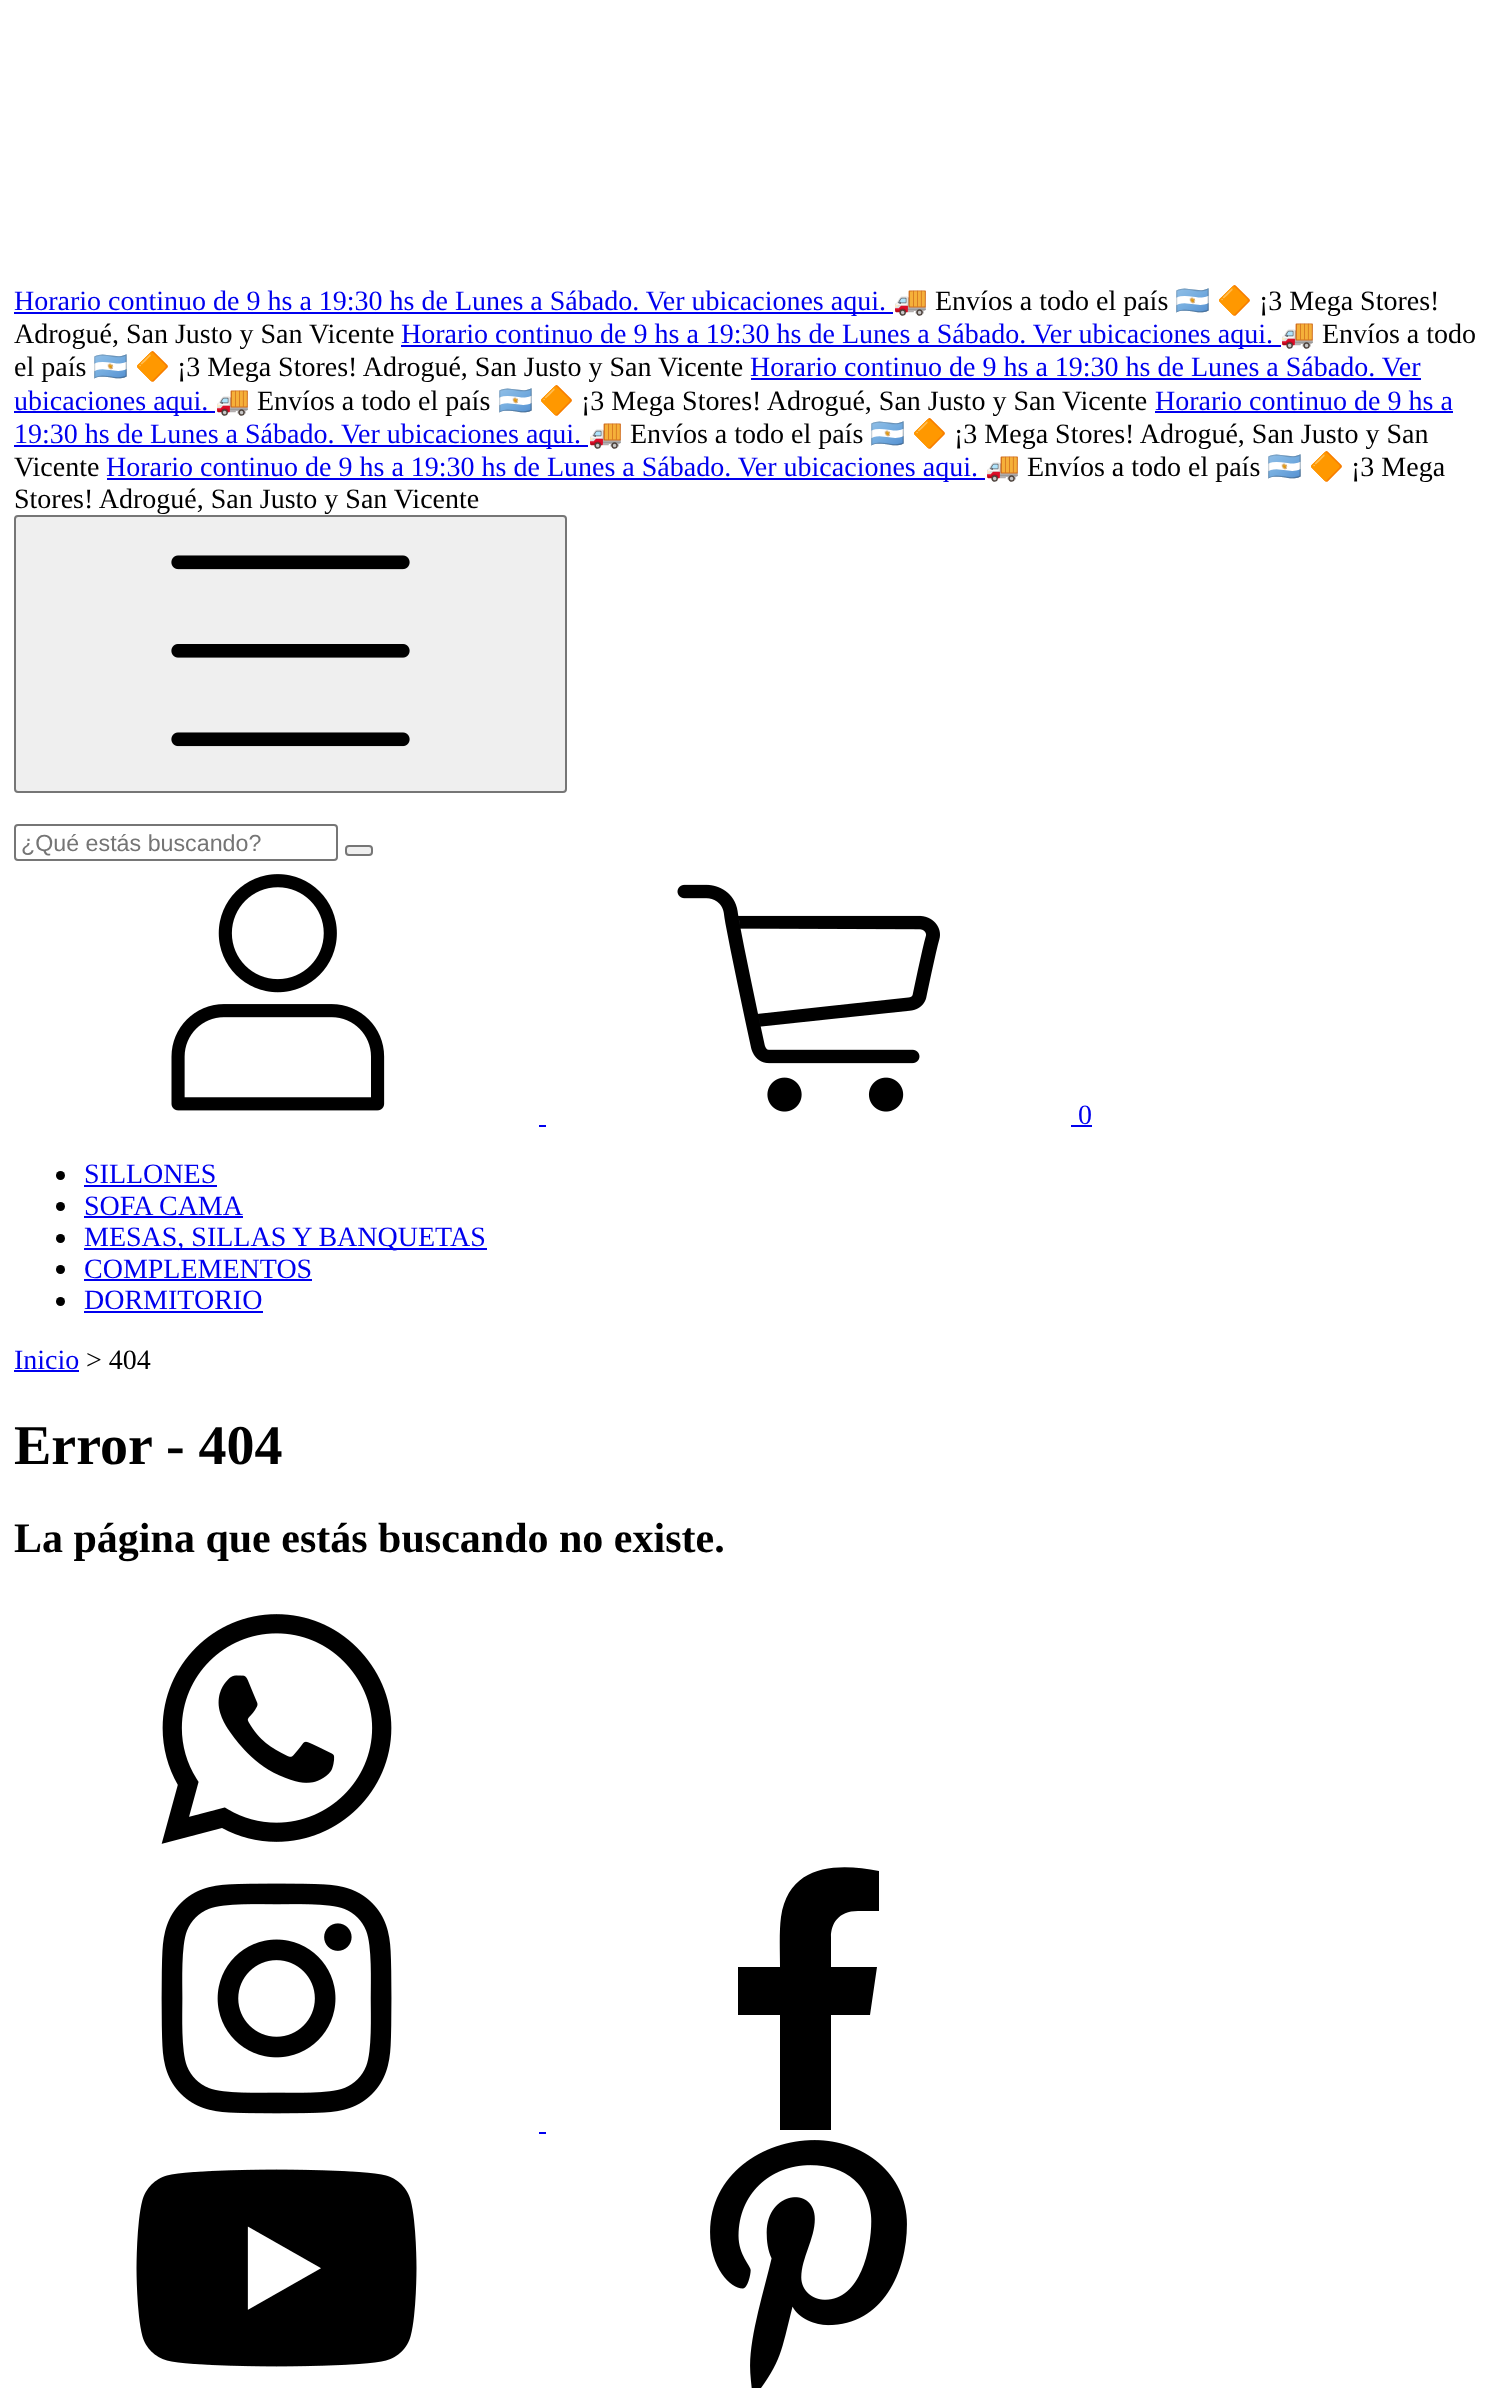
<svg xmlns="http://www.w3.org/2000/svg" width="1497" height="2388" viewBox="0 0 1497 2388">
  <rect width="100%" height="100%" fill="rgb(255,255,255)"/>
  <rect x="14" y="312" width="879" height="2" fill="rgb(0,0,238)"/>
  <text x="14" y="310" font-family="Liberation Serif" font-size="28" fill="rgb(0,0,238)">Horario continuo de 9 hs a 19:30 hs de Lunes a Sábado. Ver ubicaciones aqui.</text>
  <text x="893" y="310" font-family="Noto Color Emoji" font-size="28" fill="rgb(0,0,0)">🚚</text>
  <text x="935" y="310" font-family="Liberation Serif" font-size="28" fill="rgb(0,0,0)">Envíos a todo el país</text>
  <g font-family="Noto Color Emoji" font-size="28" fill="rgb(0,0,0)">
    <text x="1175" y="310">🇦🇷</text>
    <text x="1217" y="310">🔶️</text>
  </g>
  <g font-family="Liberation Serif" font-size="28" fill="rgb(0,0,0)">
    <text x="1259" y="310">¡3 Mega Stores!</text>
    <text x="14" y="343">Adrogué, San Justo y San Vicente</text>
  </g>
  <rect x="401" y="345" width="880" height="2" fill="rgb(0,0,238)"/>
  <text x="401" y="343" font-family="Liberation Serif" font-size="28" fill="rgb(0,0,238)">Horario continuo de 9 hs a 19:30 hs de Lunes a Sábado. Ver ubicaciones aqui.</text>
  <text x="1280" y="343" font-family="Noto Color Emoji" font-size="28" fill="rgb(0,0,0)">🚚</text>
  <g font-family="Liberation Serif" font-size="28" fill="rgb(0,0,0)">
    <text x="1322" y="343">Envíos a todo</text>
    <text x="14" y="376">el país</text>
  </g>
  <g font-family="Noto Color Emoji" font-size="28" fill="rgb(0,0,0)">
    <text x="93" y="376">🇦🇷</text>
    <text x="135" y="376">🔶️</text>
  </g>
  <text x="177" y="376" font-family="Liberation Serif" font-size="28" fill="rgb(0,0,0)">¡3 Mega Stores! Adrogué, San Justo y San Vicente</text>
  <text x="750" y="376" font-family="Liberation Serif" font-size="28" fill="rgb(0,0,238)">Horario continuo de 9 hs a 19:30 hs de Lunes a Sábado. Ver</text>
  <rect x="751" y="378" width="670" height="2" fill="rgb(0,0,238)"/>
  <rect x="14" y="411" width="201" height="2" fill="rgb(0,0,238)"/>
  <text x="14" y="410" font-family="Liberation Serif" font-size="28" fill="rgb(0,0,238)">ubicaciones aqui.</text>
  <text x="215" y="410" font-family="Noto Color Emoji" font-size="28" fill="rgb(0,0,0)">🚚</text>
  <text x="257" y="410" font-family="Liberation Serif" font-size="28" fill="rgb(0,0,0)">Envíos a todo el país</text>
  <g font-family="Noto Color Emoji" font-size="28" fill="rgb(0,0,0)">
    <text x="498" y="410">🇦🇷</text>
    <text x="539" y="410">🔶️</text>
  </g>
  <text x="581" y="410" font-family="Liberation Serif" font-size="28" fill="rgb(0,0,0)">¡3 Mega Stores! Adrogué, San Justo y San Vicente</text>
  <text x="1155" y="410" font-family="Liberation Serif" font-size="28" fill="rgb(0,0,238)">Horario continuo de 9 hs a</text>
  <rect x="1155" y="411" width="298" height="2" fill="rgb(0,0,238)"/>
  <rect x="14" y="445" width="574" height="2" fill="rgb(0,0,238)"/>
  <text x="14" y="443" font-family="Liberation Serif" font-size="28" fill="rgb(0,0,238)">19:30 hs de Lunes a Sábado. Ver ubicaciones aqui.</text>
  <text x="588" y="443" font-family="Noto Color Emoji" font-size="28" fill="rgb(0,0,0)">🚚</text>
  <text x="630" y="443" font-family="Liberation Serif" font-size="28" fill="rgb(0,0,0)">Envíos a todo el país</text>
  <g font-family="Noto Color Emoji" font-size="28" fill="rgb(0,0,0)">
    <text x="870" y="443">🇦🇷</text>
    <text x="912" y="443">🔶️</text>
  </g>
  <g font-family="Liberation Serif" font-size="28" fill="rgb(0,0,0)">
    <text x="954" y="443">¡3 Mega Stores! Adrogué, San Justo y San</text>
    <text x="14" y="476">Vicente</text>
  </g>
  <rect x="107" y="478" width="878" height="2" fill="rgb(0,0,238)"/>
  <text x="106" y="476" font-family="Liberation Serif" font-size="28" fill="rgb(0,0,238)">Horario continuo de 9 hs a 19:30 hs de Lunes a Sábado. Ver ubicaciones aqui.</text>
  <text x="985" y="476" font-family="Noto Color Emoji" font-size="28" fill="rgb(0,0,0)">🚚</text>
  <text x="1027" y="476" font-family="Liberation Serif" font-size="28" fill="rgb(0,0,0)">Envíos a todo el país</text>
  <g font-family="Noto Color Emoji" font-size="28" fill="rgb(0,0,0)">
    <text x="1267" y="476">🇦🇷</text>
    <text x="1309" y="476">🔶️</text>
  </g>
  <g font-family="Liberation Serif" font-size="28" fill="rgb(0,0,0)">
    <text x="1351" y="476">¡3 Mega</text>
    <text x="14" y="508">Stores! Adrogué, San Justo y San Vicente</text>
  </g>
  <rect x="15" y="516" width="551" height="276" rx="3" fill="rgb(239,239,239)" stroke="rgb(118,118,118)" stroke-width="2"/>
  <image x="171" y="555" width="239" height="192" href="pic1.png"/>
  <rect x="15" y="825" width="322" height="35" rx="3" fill="none" stroke="rgb(118,118,118)" stroke-width="2"/>
  <text x="21" y="851" font-family="Liberation Sans" font-size="23.25" fill="rgb(117,117,117)">¿Qué estás buscando?</text>
  <rect x="346" y="846" width="26" height="9" rx="3" fill="rgb(239,239,239)" stroke="rgb(118,118,118)" stroke-width="2"/>
  <image x="171" y="874" width="214" height="237" href="pic2.png"/>
  <image x="677" y="884" width="263" height="228" href="pic3.png"/>
  <text x="1078" y="1124" font-family="Liberation Serif" font-size="28" fill="rgb(0,0,238)">0</text>
  <rect x="1071" y="1125" width="21" height="2" fill="rgb(0,0,238)"/>
  <rect x="539" y="1125" width="7" height="2" fill="rgb(0,0,238)"/>
  <circle cx="60.5" cy="1175.5" r="4.5" fill="rgb(0,0,0)"/>
  <text x="84" y="1183" font-family="Liberation Serif" font-size="28" fill="rgb(0,0,238)">SILLONES</text>
  <rect x="84" y="1185" width="133" height="2" fill="rgb(0,0,238)"/>
  <circle cx="60.5" cy="1206.5" r="4.5" fill="rgb(0,0,0)"/>
  <text x="84" y="1215" font-family="Liberation Serif" font-size="28" fill="rgb(0,0,238)">SOFA CAMA</text>
  <rect x="84" y="1216" width="159" height="2" fill="rgb(0,0,238)"/>
  <circle cx="60.5" cy="1238.5" r="4.5" fill="rgb(0,0,0)"/>
  <rect x="84" y="1248" width="403" height="2" fill="rgb(0,0,238)"/>
  <text x="84" y="1246" font-family="Liberation Serif" font-size="28" fill="rgb(0,0,238)">MESAS, SILLAS Y BANQUETAS</text>
  <circle cx="60.5" cy="1269.5" r="4.5" fill="rgb(0,0,0)"/>
  <text x="84" y="1278" font-family="Liberation Serif" font-size="28" fill="rgb(0,0,238)">COMPLEMENTOS</text>
  <rect x="84" y="1279" width="228" height="2" fill="rgb(0,0,238)"/>
  <circle cx="60.5" cy="1301.5" r="4.5" fill="rgb(0,0,0)"/>
  <text x="84" y="1309" font-family="Liberation Serif" font-size="28" fill="rgb(0,0,238)">DORMITORIO</text>
  <rect x="84" y="1311" width="179" height="2" fill="rgb(0,0,238)"/>
  <text x="14" y="1369" font-family="Liberation Serif" font-size="28" fill="rgb(0,0,238)">Inicio</text>
  <rect x="14" y="1370" width="65" height="2" fill="rgb(0,0,238)"/>
  <text x="86" y="1369" font-family="Liberation Serif" font-size="28" fill="rgb(0,0,0)">&gt; 404</text>
  <text x="14" y="1464" font-family="Liberation Serif" font-size="56" font-weight="bold" fill="rgb(0,0,0)">Error - 404</text>
  <text x="14" y="1552" font-family="Liberation Serif" font-size="42" font-weight="bold" fill="rgb(0,0,0)">La página que estás buscando no existe.</text>
  <image x="161" y="1614" width="231" height="230" href="pic4.png"/>
  <image x="161" y="1883" width="231" height="231" href="pic5.png"/>
  <path d="M870 2015L877 1967H831V1937C831 1924 838 1911 858 1911H879V1871C837 1863 789 1864 781 1917C779 1932 780 1952 780 1967H738V2015H780V2130H831V2015Z" fill="rgb(0,0,0)"/>
  <rect x="539" y="2132" width="7" height="2" fill="rgb(0,0,238)"/>
  <image x="136" y="2169" width="281" height="198" href="pic6.png"/>
  <image x="710" y="2140" width="197" height="248" href="pic7.png"/>
</svg>
